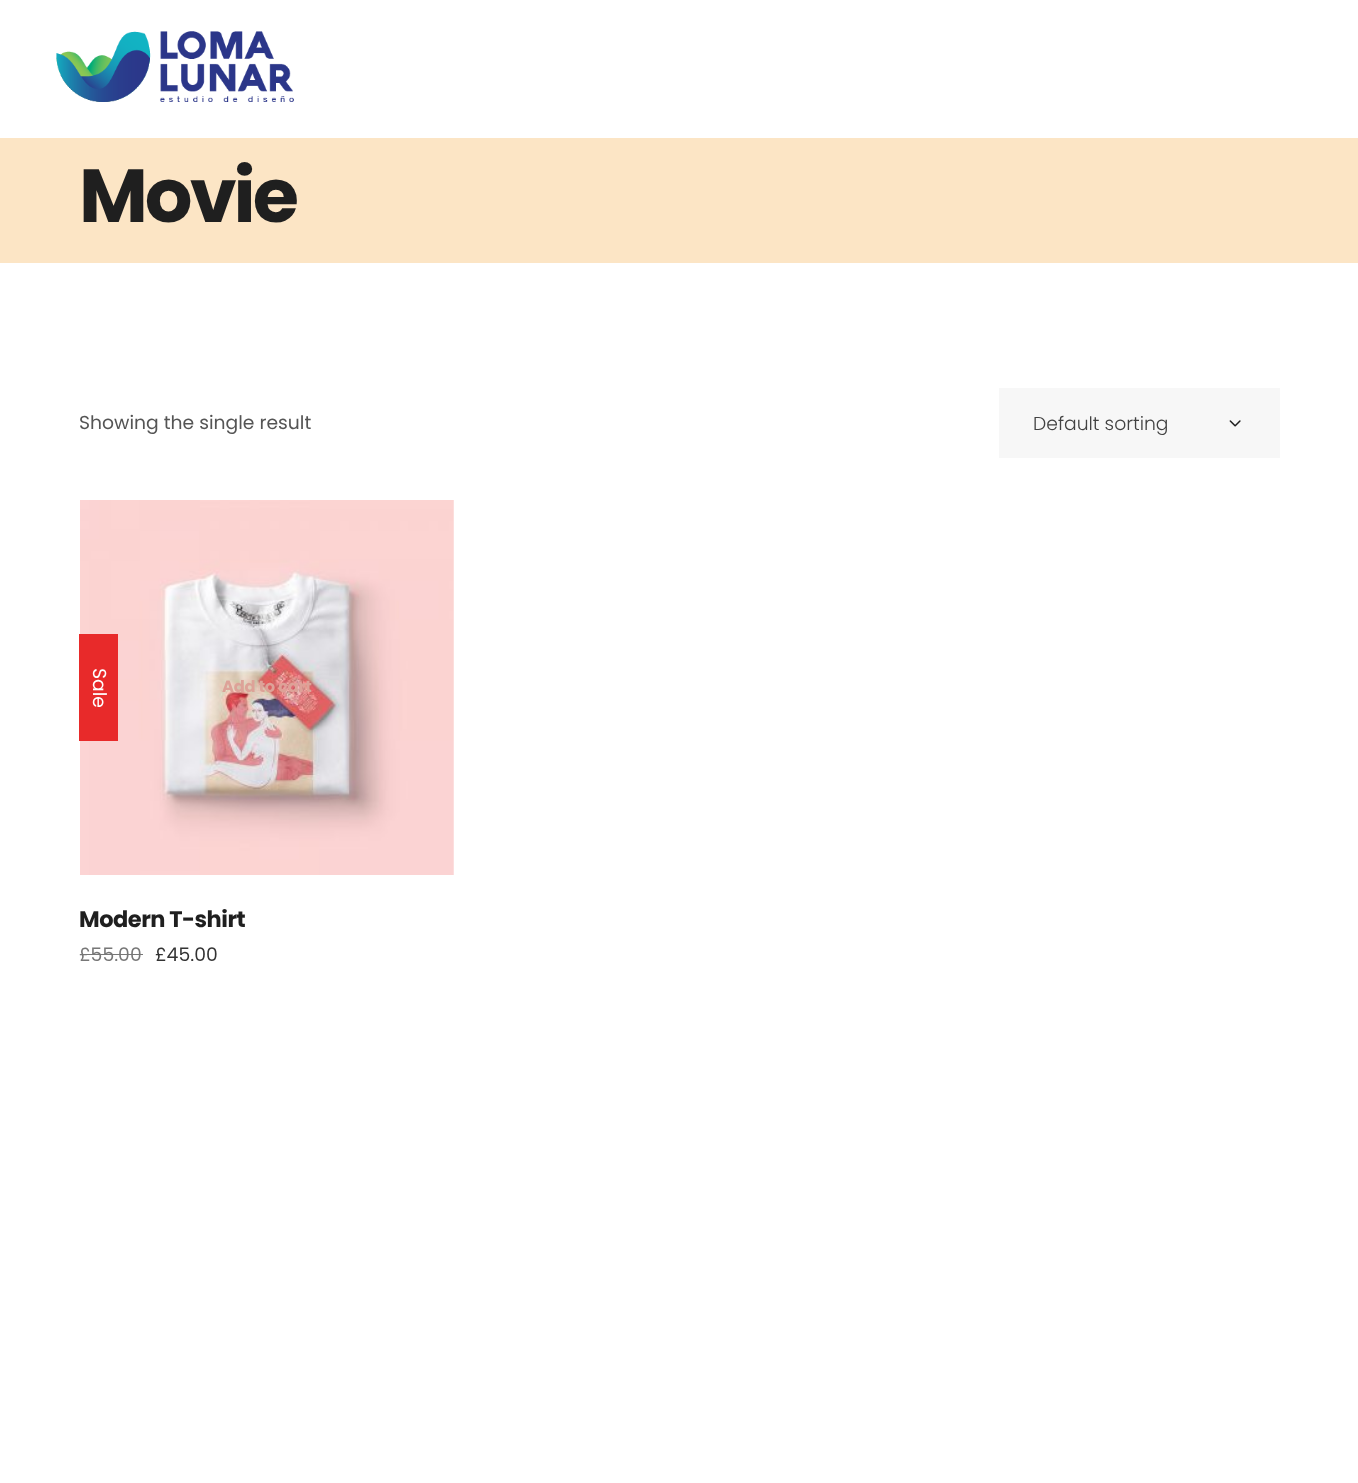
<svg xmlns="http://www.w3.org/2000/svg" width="1358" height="1483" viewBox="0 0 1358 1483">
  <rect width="100%" height="100%" fill="rgb(255,255,255)"/>
  <image x="56" y="31" width="238" height="71" href="pic1.png"/>
  <rect x="0" y="138" width="1358" height="125" fill="rgb(252,229,197)"/>
  <text x="79" y="222" font-family="Poppins" font-size="75" font-weight="bold" letter-spacing="-3" fill="rgb(31,31,31)">Movie</text>
  <text x="79" y="429" font-family="Poppins" font-size="18.75" fill="rgb(85,85,85)">Showing the single result</text>
  <rect x="999" y="388" width="281" height="70" fill="rgb(247,247,247)"/>
  <text x="1033" y="430" font-family="Poppins" font-size="18.75" font-weight="300" fill="rgb(66,66,66)">Default sorting</text>
  <image x="1229" y="420" width="12" height="7" href="pic2.png"/>
  <image x="80" y="500" width="374" height="375" href="pic3.png"/>
  <rect x="79" y="634" width="39" height="107" fill="rgb(232,42,42)"/>
  <text x="93" y="668" transform="rotate(90 93 668)" font-family="Poppins" font-size="18.75" fill="rgb(255,255,255)">Sale</text>
  <text x="222" y="692" font-family="Poppins" font-size="16.25" font-weight="bold" letter-spacing="-0.25" fill="rgb(221,162,152)">Add to cart</text>
  <text x="79" y="927" font-family="Poppins" font-size="22.5" font-weight="bold" letter-spacing="-0.5" fill="rgb(31,31,31)">Modern T-shirt</text>
  <text x="79" y="961" font-family="Poppins" font-size="18.75" fill="rgb(119,119,119)">£55.00</text>
  <rect x="80" y="954" width="63" height="1" fill="rgb(119,119,119)"/>
  <text x="155" y="961" font-family="Poppins" font-size="18.75" fill="rgb(51,51,51)">£45.00</text>
</svg>
